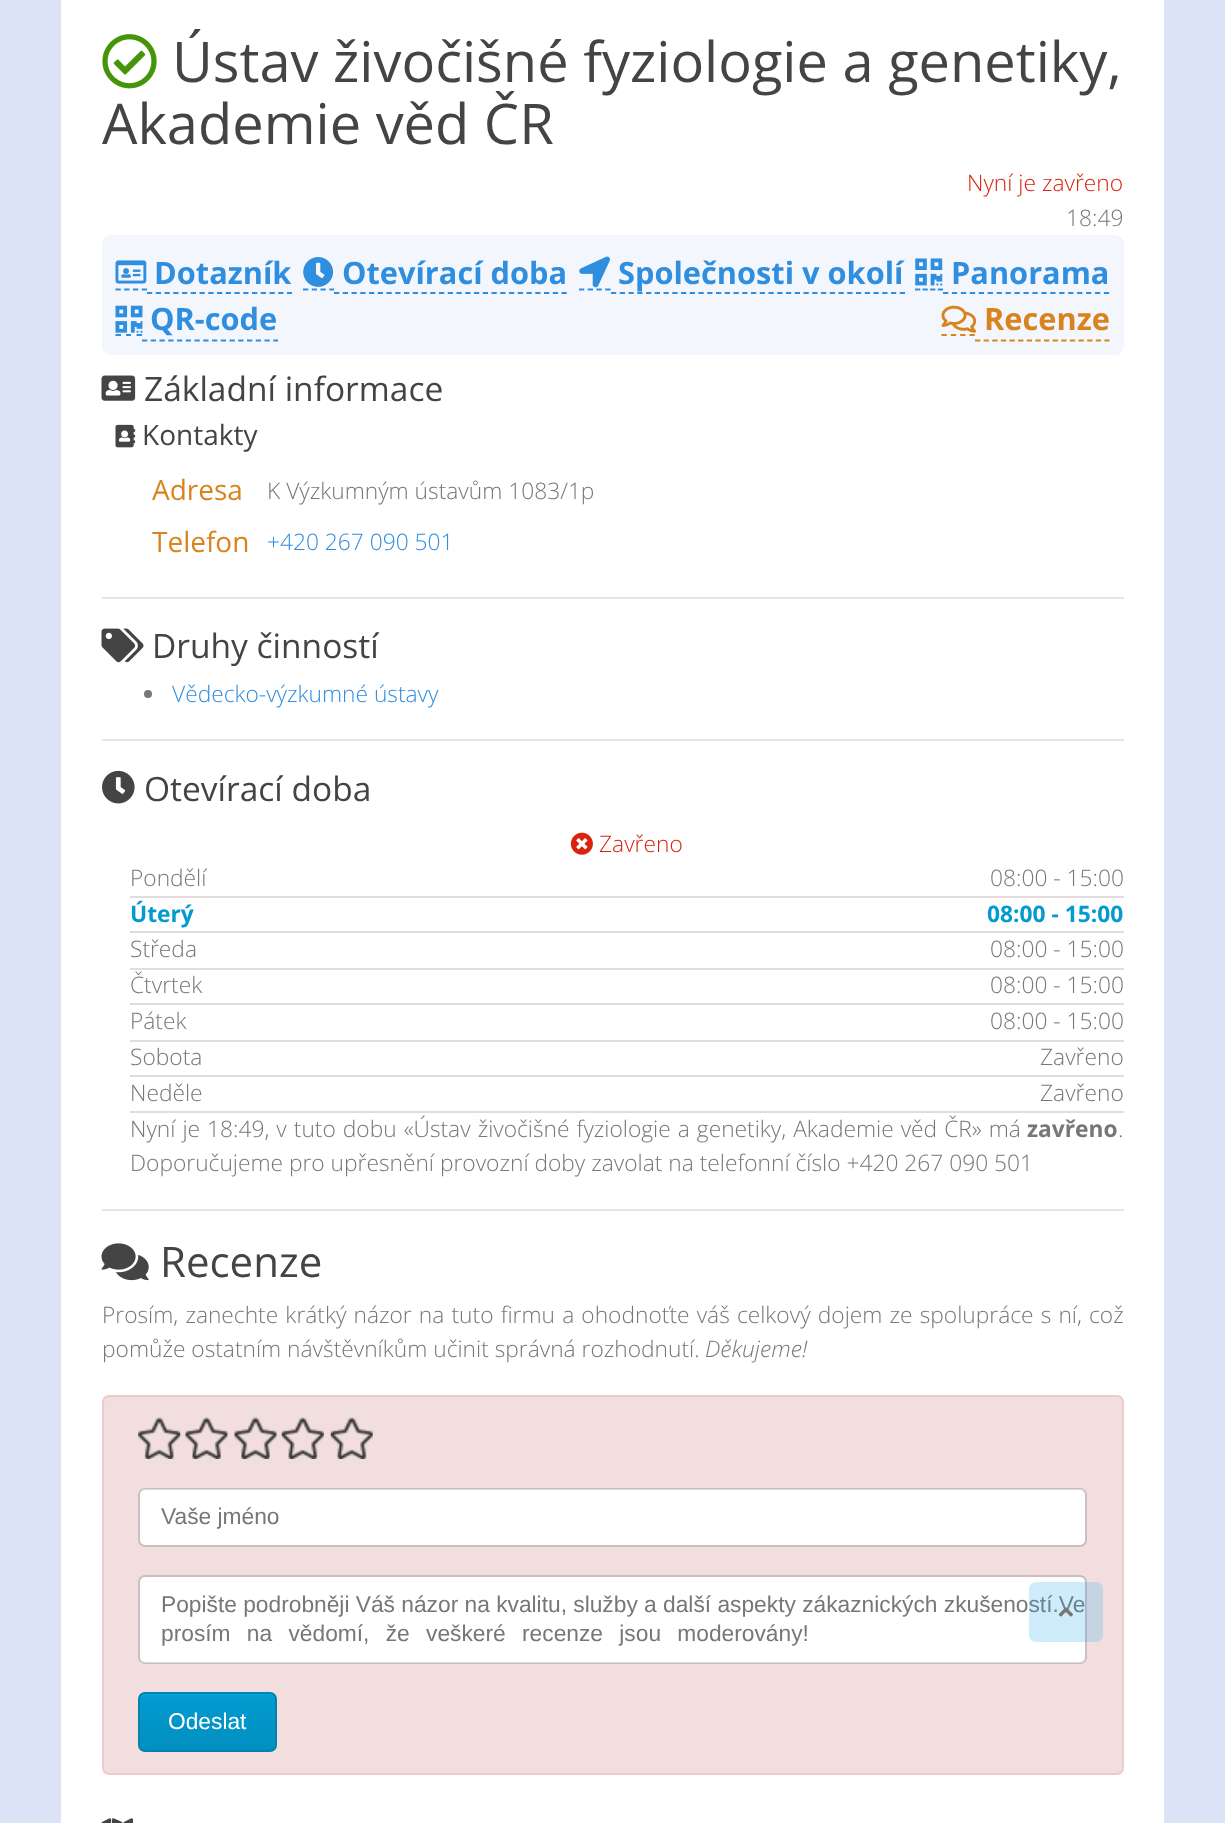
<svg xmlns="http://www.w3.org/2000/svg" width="1225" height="1823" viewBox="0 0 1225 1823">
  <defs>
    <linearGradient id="g1" gradientUnits="userSpaceOnUse" x1="207" y1="1694" x2="207" y2="1750"><stop offset="0" stop-color="rgb(2,165,222)"/><stop offset="0.06" stop-color="rgb(2,154,207)"/><stop offset="1" stop-color="rgb(2,143,192)"/></linearGradient>
  </defs>
  <rect width="100%" height="100%" fill="rgb(221,227,247)"/>
  <rect x="61" y="0" width="1103" height="1823" fill="rgb(255,255,255)"/>
  <image x="102" y="34" width="55" height="55" href="pic1.png"/>
  <g font-family="Open Sans" font-size="56" fill="rgb(68,68,68)">
    <text x="172" y="82">Ústav živočišné fyziologie a genetiky,</text>
    <text x="102" y="144">Akademie věd ČR</text>
  </g>
  <text x="967" y="191" font-family="Open Sans" font-size="22.75" font-weight="300" fill="rgb(217,35,15)">Nyní je zavřeno</text>
  <text x="1066" y="226" font-family="Open Sans" font-size="22.75" font-weight="300" fill="rgb(119,119,119)">18:49</text>
  <rect x="102" y="235" width="1022" height="120" rx="9" fill="rgb(244,246,253)"/>
  <path d="M115.5 289.5H147" fill="none" stroke="rgb(48,142,222)" stroke-width="1.8" stroke-dasharray="5.25 3.5"/>
  <path d="M147 293H292" fill="none" stroke="rgb(48,142,222)" stroke-width="1.8" stroke-dasharray="5.25 3.5"/>
  <image x="115" y="260" width="32" height="24" href="pic2.png"/>
  <text x="154" y="284" font-family="Open Sans" font-size="30.75" font-weight="bold" fill="rgb(48,142,222)">Dotazník</text>
  <path d="M303 289.5H334" fill="none" stroke="rgb(48,142,222)" stroke-width="1.8" stroke-dasharray="5.25 3.5"/>
  <path d="M334 293H567" fill="none" stroke="rgb(48,142,222)" stroke-width="1.8" stroke-dasharray="5.25 3.5"/>
  <image x="303" y="257" width="31" height="30" href="pic3.png"/>
  <text x="342" y="284" font-family="Open Sans" font-size="30.75" font-weight="bold" fill="rgb(48,142,222)">Otevírací doba</text>
  <path d="M579 289.5H611" fill="none" stroke="rgb(48,142,222)" stroke-width="1.8" stroke-dasharray="5.25 3.5"/>
  <path d="M611 293H905" fill="none" stroke="rgb(48,142,222)" stroke-width="1.8" stroke-dasharray="5.25 3.5"/>
  <image x="579" y="256" width="31" height="32" href="pic4.png"/>
  <text x="618" y="284" font-family="Open Sans" font-size="30.75" font-weight="bold" fill="rgb(48,142,222)">Společnosti v okolí</text>
  <path d="M915 289.5H943" fill="none" stroke="rgb(48,142,222)" stroke-width="1.8" stroke-dasharray="5.25 2.33"/>
  <path d="M943 293H1109.5" fill="none" stroke="rgb(48,142,222)" stroke-width="1.8" stroke-dasharray="5.25 3.69"/>
  <image x="915" y="258" width="28" height="28" href="pic5.png"/>
  <text x="951" y="284" font-family="Open Sans" font-size="30.75" font-weight="bold" fill="rgb(48,142,222)">Panorama</text>
  <path d="M115.5 335H121M126 335H131M136.5 335H142" fill="none" stroke="rgb(48,142,222)" stroke-width="1.8"/>
  <path d="M142 340.5H278" fill="none" stroke="rgb(48,142,222)" stroke-width="1.8" stroke-dasharray="5.25 3.5"/>
  <image x="115" y="305" width="28" height="28" href="pic6.png"/>
  <text x="150" y="330" font-family="Open Sans" font-size="30.75" font-weight="bold" fill="rgb(48,142,222)">QR-code</text>
  <path d="M941.5 335H975" fill="none" stroke="rgb(217,131,31)" stroke-width="1.8" stroke-dasharray="5.25 4.08"/>
  <path d="M975 340.5H1109.5" fill="none" stroke="rgb(217,131,31)" stroke-width="1.8" stroke-dasharray="5.25 3.38"/>
  <image x="941" y="305" width="36" height="28" href="pic7.png"/>
  <text x="984" y="330" font-family="Open Sans" font-size="30.75" font-weight="bold" fill="rgb(217,131,31)">Recenze</text>
  <image x="101" y="375" width="35" height="26" href="pic8.png"/>
  <text x="144" y="401" font-family="Open Sans" font-size="33.5" fill="rgb(68,68,68)">Základní informace</text>
  <image x="115" y="424" width="21" height="24" href="pic9.png"/>
  <text x="142" y="445" font-family="Open Sans" font-size="28" fill="rgb(68,68,68)">Kontakty</text>
  <text x="152" y="500" font-family="Open Sans" font-size="28" fill="rgb(217,131,31)">Adresa</text>
  <text x="267" y="499" font-family="Open Sans" font-size="22.75" font-weight="300" fill="rgb(119,119,119)">K Výzkumným ústavům 1083/1p</text>
  <text x="152" y="552" font-family="Open Sans" font-size="28" fill="rgb(217,131,31)">Telefon</text>
  <text x="267" y="550" font-family="Open Sans" font-size="22.75" font-weight="300" fill="rgb(48,142,222)">+420 267 090 501</text>
  <rect x="102" y="597" width="1022" height="2" fill="rgb(230,230,230)"/>
  <image x="101" y="628" width="43" height="35" href="pic10.png"/>
  <text x="152" y="658" font-family="Open Sans" font-size="33.5" fill="rgb(68,68,68)">Druhy činností</text>
  <circle cx="148" cy="694" r="4" fill="rgb(119,119,119)"/>
  <text x="172" y="702" font-family="Open Sans" font-size="22.75" font-weight="300" fill="rgb(48,142,222)">Vědecko-výzkumné ústavy</text>
  <rect x="102" y="739" width="1022" height="2" fill="rgb(230,230,230)"/>
  <image x="102" y="770" width="33" height="34" href="pic11.png"/>
  <text x="144" y="801" font-family="Open Sans" font-size="33.5" fill="rgb(68,68,68)">Otevírací doba</text>
  <image x="570" y="832" width="23" height="23" href="pic12.png"/>
  <text x="599" y="852" font-family="Open Sans" font-size="22.75" font-weight="300" fill="rgb(217,35,15)">Zavřeno</text>
  <rect x="130" y="896" width="994" height="2" fill="rgb(228,220,220)"/>
  <g font-family="Open Sans" font-size="22.75" font-weight="300" fill="rgb(119,119,119)">
    <text x="130" y="886">Pondělí</text>
    <text x="990" y="886">08:00 - 15:00</text>
  </g>
  <rect x="130" y="931" width="994" height="2" fill="rgb(228,220,220)"/>
  <g font-family="Open Sans" font-size="22.75" font-weight="bold" fill="rgb(2,154,207)">
    <text x="130" y="922">Úterý</text>
    <text x="987" y="922">08:00 - 15:00</text>
  </g>
  <rect x="130" y="968" width="994" height="2" fill="rgb(228,220,220)"/>
  <g font-family="Open Sans" font-size="22.75" font-weight="300" fill="rgb(119,119,119)">
    <text x="130" y="957">Středa</text>
    <text x="990" y="957">08:00 - 15:00</text>
  </g>
  <rect x="130" y="1003" width="994" height="2" fill="rgb(228,220,220)"/>
  <g font-family="Open Sans" font-size="22.75" font-weight="300" fill="rgb(119,119,119)">
    <text x="130" y="993">Čtvrtek</text>
    <text x="990" y="993">08:00 - 15:00</text>
  </g>
  <rect x="130" y="1040" width="994" height="2" fill="rgb(228,220,220)"/>
  <g font-family="Open Sans" font-size="22.75" font-weight="300" fill="rgb(119,119,119)">
    <text x="130" y="1029">Pátek</text>
    <text x="990" y="1029">08:00 - 15:00</text>
  </g>
  <rect x="130" y="1075" width="994" height="2" fill="rgb(228,220,220)"/>
  <g font-family="Open Sans" font-size="22.75" font-weight="300" fill="rgb(119,119,119)">
    <text x="130" y="1065">Sobota</text>
    <text x="1040" y="1065">Zavřeno</text>
  </g>
  <rect x="130" y="1111" width="994" height="2" fill="rgb(228,220,220)"/>
  <g font-family="Open Sans" font-size="22.75" font-weight="300" fill="rgb(119,119,119)">
    <text x="130" y="1101">Neděle</text>
    <text x="1040" y="1101">Zavřeno</text>
    <text x="130" y="1137" word-spacing="1.1">Nyní je 18:49, v tuto dobu «Ústav živočišné fyziologie a genetiky, Akademie věd ČR» má</text>
  </g>
  <text x="1027" y="1137" font-family="Open Sans" font-size="22.75" font-weight="bold" fill="rgb(119,119,119)">zavřeno</text>
  <g font-family="Open Sans" font-size="22.75" font-weight="300" fill="rgb(119,119,119)">
    <text x="1118" y="1137">.</text>
    <text x="130" y="1171">Doporučujeme pro upřesnění provozní doby zavolat na telefonní číslo +420 267 090 501</text>
  </g>
  <rect x="102" y="1209" width="1022" height="2" fill="rgb(230,230,230)"/>
  <image x="101" y="1243" width="48" height="38" href="pic13.png"/>
  <text x="160" y="1277" font-family="Open Sans" font-size="42" fill="rgb(68,68,68)">Recenze</text>
  <g font-family="Open Sans" font-size="22.75" font-weight="300" fill="rgb(119,119,119)">
    <text>
      <tspan x="102" y="1323" word-spacing="1.25">Prosím, zanechte krátký názor na tuto firmu a ohodnoťte váš celkový dojem ze spolupráce s ní, což</tspan>
      <tspan x="102" y="1357">pomůže ostatním návštěvníkům učinit správná rozhodnutí.</tspan>
    </text>
  </g>
  <text x="705" y="1357" font-family="Open Sans" font-size="22.75" font-weight="300" font-style="italic" fill="rgb(119,119,119)">Děkujeme!</text>
  <rect x="103" y="1396" width="1020" height="378" rx="6" fill="rgb(242,222,222)" stroke="rgb(235,204,204)" stroke-width="2"/>
  <image x="138" y="1417" width="43" height="42" href="pic14.png"/>
  <image x="185" y="1417" width="43" height="42" href="pic15.png"/>
  <image x="234" y="1417" width="43" height="42" href="pic16.png"/>
  <image x="281" y="1417" width="43" height="42" href="pic17.png"/>
  <image x="330" y="1417" width="43" height="42" href="pic17.png"/>
  <rect x="140" y="1489" width="945" height="56" rx="5" fill="rgb(255,255,255)"/>
  <rect x="139" y="1489" width="947" height="57" rx="6" fill="none" stroke="rgba(0,0,0,0.15)" stroke-width="2"/>
  <text x="161" y="1524" font-family="Liberation Sans" font-size="22.75" fill="rgb(119,119,119)">Vaše jméno</text>
  <rect x="140" y="1577" width="945" height="86" rx="5" fill="rgb(255,255,255)"/>
  <rect x="139" y="1576" width="947" height="87" rx="6" fill="none" stroke="rgba(0,0,0,0.15)" stroke-width="2"/>
  <g font-family="Liberation Sans" font-size="22.75" fill="rgb(119,119,119)">
    <text>
      <tspan x="161" y="1612">Popište podrobněji Váš názor na kvalitu, služby a další aspekty zákaznických zkušeností.Ve</tspan>
      <tspan x="161" y="1641" word-spacing="10">prosím na vědomí, že veškeré recenze jsou moderovány!</tspan>
    </text>
  </g>
  <rect x="140" y="1694" width="135" height="56" fill="url(#g1)"/>
  <rect x="139" y="1693" width="137" height="58" rx="6" fill="none" stroke="rgb(2,130,174)" stroke-width="2"/>
  <text x="168" y="1729" font-family="Liberation Sans" font-size="22.75" fill="rgb(255,255,255)">Odeslat</text>
  <image x="101" y="1818" width="32" height="5" href="pic18.png"/>
  <rect x="1029" y="1582" width="74" height="60" rx="7" fill="rgba(55,174,240,0.24)"/>
  <image x="1058" y="1607" width="15" height="10" href="pic19.png"/>
</svg>
